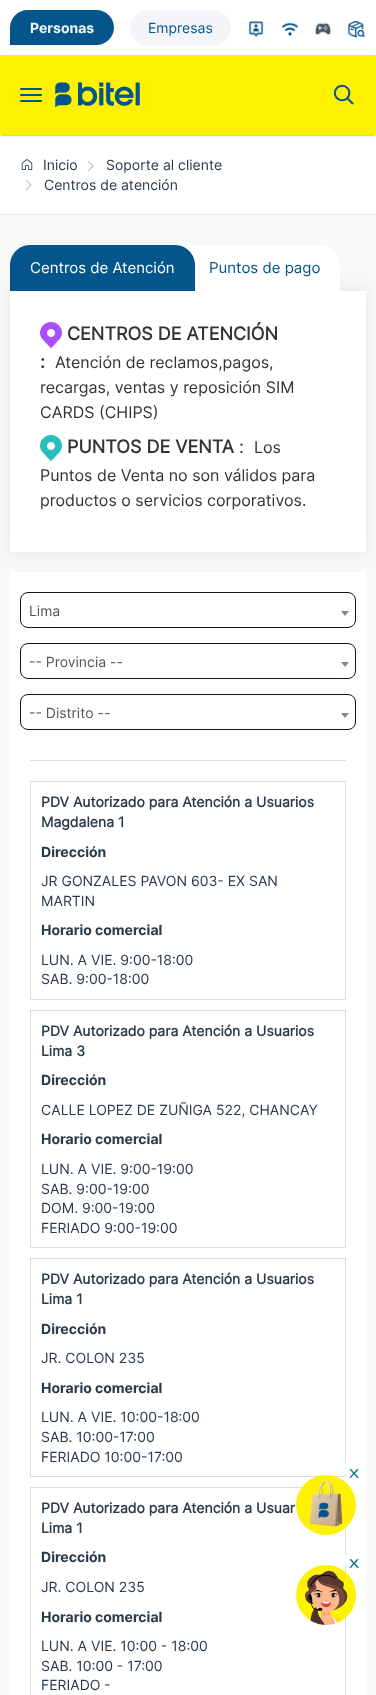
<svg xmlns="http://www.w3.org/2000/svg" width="376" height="1695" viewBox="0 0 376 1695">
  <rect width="100%" height="100%" fill="rgb(255,255,255)"/>
  <path d="M27.5 10H96.5C106 10 114 18 114 27.5C114 37 106 45 96.5 45H10V27.5C10 18 18 10 27.5 10Z" fill="rgb(3,85,139)"/>
  <text x="30" y="33" font-family="Inter" font-size="14" font-weight="bold" fill="rgb(243,245,248)">Personas</text>
  <rect x="130" y="11" width="101" height="34" rx="17" fill="rgb(243,245,248)"/>
  <text x="148" y="33" font-family="Inter" font-size="14" fill="rgb(3,85,139)">Empresas</text>
  <image x="248" y="21" width="16" height="16" href="pic1.png"/>
  <image x="281" y="22" width="18" height="15" href="pic2.png"/>
  <image x="315" y="23" width="16" height="12" href="pic3.png"/>
  <image x="348" y="20" width="18" height="18" href="pic4.png"/>
  <rect x="1" y="58" width="374" height="78" fill="rgba(0,0,0,0.12)" filter="blur(0.5px)"/>
  <rect x="0" y="56" width="376" height="80" fill="rgba(0,0,0,0.12)" filter="blur(1.5px)"/>
  <rect x="0" y="55" width="376" height="80" fill="rgb(255,242,0)"/>
  <rect x="20" y="88" width="22" height="2" rx="1" fill="rgb(3,85,139)"/>
  <rect x="20" y="94" width="22" height="2" rx="1" fill="rgb(3,85,139)"/>
  <rect x="20" y="100" width="22" height="2" rx="1" fill="rgb(3,85,139)"/>
  <image x="55" y="82" width="85" height="26" href="pic5.png"/>
  <image x="333" y="84" width="21" height="21" href="pic6.png"/>
  <rect x="0" y="214" width="376" height="1" fill="rgb(234,234,234)"/>
  <image x="21" y="159" width="12" height="11" href="pic7.png"/>
  <text x="43" y="170" font-family="Inter" font-size="14" fill="rgb(42,58,73)">Inicio</text>
  <image x="88" y="161" width="6" height="11" href="pic8.png"/>
  <text x="106" y="170" font-family="Inter" font-size="14" fill="rgb(42,58,73)">Soporte al cliente</text>
  <image x="26" y="180" width="6" height="11" href="pic8.png"/>
  <text x="44" y="190" font-family="Inter" font-size="14" fill="rgb(42,58,73)">Centros de atención</text>
  <rect x="0" y="215" width="376" height="1480" fill="rgb(248,248,248)"/>
  <rect x="9" y="290" width="358" height="263" fill="rgba(69,65,78,0.1)" filter="blur(7.5px)"/>
  <path d="M169 245H320C331 245 340 254 340 265V291H169Z" fill="rgb(255,255,255)"/>
  <path d="M30 245H175C186 245 195 254 195 265V291H10V265C10 254 19 245 30 245Z" fill="rgb(3,85,139)"/>
  <text x="30" y="273" font-family="Inter" font-size="15" fill="rgb(255,255,255)">Centros de Atención</text>
  <text x="209" y="273" font-family="Inter" font-size="15" fill="rgb(3,85,139)">Puntos de pago</text>
  <rect x="10" y="291" width="356" height="261" fill="rgb(255,255,255)"/>
  <image x="40" y="322" width="22" height="27" href="pic9.png"/>
  <g font-family="'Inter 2'" font-size="18" font-weight="bold" fill="rgb(51,51,51)">
    <text x="67" y="340">CENTROS DE ATENCIÓN</text>
    <text x="40" y="368">:</text>
  </g>
  <g font-family="Inter" font-size="16" fill="rgb(51,51,51)">
    <text x="55" y="368">Atención de reclamos,pagos,</text>
    <text>
      <tspan x="40" y="393">recargas, ventas y reposición SIM</tspan>
      <tspan x="40" y="418">CARDS (CHIPS)</tspan>
    </text>
  </g>
  <image x="40" y="435" width="22" height="27" href="pic10.png"/>
  <text x="67" y="453" font-family="'Inter 2'" font-size="18" font-weight="bold" fill="rgb(51,51,51)">PUNTOS DE VENTA</text>
  <text x="239" y="453" font-family="Inter" font-size="18" fill="rgb(51,51,51)">:</text>
  <g font-family="Inter" font-size="16" fill="rgb(51,51,51)">
    <text x="254" y="453">Los</text>
    <text>
      <tspan x="40" y="481">Puntos de Venta no son válidos para</tspan>
      <tspan x="40" y="506">productos o servicios corporativos.</tspan>
    </text>
  </g>
  <rect x="10" y="572" width="356" height="1123" fill="rgb(255,255,255)"/>
  <rect x="30" y="760" width="316" height="1" fill="rgb(221,221,221)"/>
  <rect x="20.5" y="592.5" width="335" height="35" rx="7.5" fill="none" stroke="rgb(16,24,40)"/>
  <text x="29" y="616" font-family="Inter" font-size="14" fill="rgb(85,85,85)">Lima</text>
  <path d="M341 611H349L345 616Z" fill="rgb(136,136,136)"/>
  <rect x="20.5" y="643.5" width="335" height="35" rx="7.5" fill="none" stroke="rgb(16,24,40)"/>
  <text x="29" y="667" font-family="Inter" font-size="14" fill="rgb(85,85,85)">-- Provincia --</text>
  <path d="M341 662H349L345 667Z" fill="rgb(136,136,136)"/>
  <rect x="20.5" y="694.5" width="335" height="35" rx="7.5" fill="none" stroke="rgb(16,24,40)"/>
  <text x="29" y="718" font-family="Inter" font-size="14" fill="rgb(85,85,85)">-- Distrito --</text>
  <path d="M341 713H349L345 718Z" fill="rgb(136,136,136)"/>
  <rect x="30.5" y="781.5" width="315" height="218" fill="none" stroke="rgb(221,221,221)"/>
  <g font-family="'Inter 2'" font-size="14" font-weight="bold" fill="rgb(42,58,73)">
    <text>
      <tspan x="41" y="807">PDV Autorizado para Atención a Usuarios</tspan>
      <tspan x="41" y="827">Magdalena 1</tspan>
    </text>
  </g>
  <text x="41" y="857" font-family="Inter" font-size="14" font-weight="bold" fill="rgb(42,58,73)">Dirección</text>
  <g font-family="Inter" font-size="14" fill="rgb(42,58,73)">
    <text>
      <tspan x="41" y="886">JR GONZALES PAVON 603- EX SAN</tspan>
      <tspan x="41" y="906">MARTIN</tspan>
    </text>
  </g>
  <text x="41" y="935" font-family="Inter" font-size="14" font-weight="bold" fill="rgb(42,58,73)">Horario comercial</text>
  <g font-family="Inter" font-size="14" fill="rgb(42,58,73)">
    <text>
      <tspan x="41" y="965">LUN. A VIE. 9:00-18:00</tspan>
      <tspan x="41" y="984">SAB. 9:00-18:00</tspan>
    </text>
  </g>
  <rect x="30.5" y="1010.5" width="315" height="237" fill="none" stroke="rgb(221,221,221)"/>
  <g font-family="'Inter 2'" font-size="14" font-weight="bold" fill="rgb(42,58,73)">
    <text>
      <tspan x="41" y="1036">PDV Autorizado para Atención a Usuarios</tspan>
      <tspan x="41" y="1056">Lima 3</tspan>
    </text>
  </g>
  <text x="41" y="1085" font-family="Inter" font-size="14" font-weight="bold" fill="rgb(42,58,73)">Dirección</text>
  <text x="41" y="1115" font-family="Inter" font-size="14" fill="rgb(42,58,73)">CALLE LOPEZ DE ZUÑIGA 522, CHANCAY</text>
  <text x="41" y="1144" font-family="Inter" font-size="14" font-weight="bold" fill="rgb(42,58,73)">Horario comercial</text>
  <g font-family="Inter" font-size="14" fill="rgb(42,58,73)">
    <text>
      <tspan x="41" y="1174">LUN. A VIE. 9:00-19:00</tspan>
      <tspan x="41" y="1194">SAB. 9:00-19:00</tspan>
      <tspan x="41" y="1213">DOM. 9:00-19:00</tspan>
      <tspan x="41" y="1233">FERIADO 9:00-19:00</tspan>
    </text>
  </g>
  <rect x="30.5" y="1258.5" width="315" height="218" fill="none" stroke="rgb(221,221,221)"/>
  <g font-family="'Inter 2'" font-size="14" font-weight="bold" fill="rgb(42,58,73)">
    <text>
      <tspan x="41" y="1284">PDV Autorizado para Atención a Usuarios</tspan>
      <tspan x="41" y="1304">Lima 1</tspan>
    </text>
  </g>
  <text x="41" y="1334" font-family="Inter" font-size="14" font-weight="bold" fill="rgb(42,58,73)">Dirección</text>
  <text x="41" y="1363" font-family="Inter" font-size="14" fill="rgb(42,58,73)">JR. COLON 235</text>
  <text x="41" y="1393" font-family="Inter" font-size="14" font-weight="bold" fill="rgb(42,58,73)">Horario comercial</text>
  <g font-family="Inter" font-size="14" fill="rgb(42,58,73)">
    <text>
      <tspan x="41" y="1422">LUN. A VIE. 10:00-18:00</tspan>
      <tspan x="41" y="1442">SAB. 10:00-17:00</tspan>
      <tspan x="41" y="1462">FERIADO 10:00-17:00</tspan>
    </text>
  </g>
  <rect x="30.5" y="1487.5" width="315" height="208" fill="none" stroke="rgb(221,221,221)"/>
  <g font-family="'Inter 2'" font-size="14" font-weight="bold" fill="rgb(42,58,73)">
    <text>
      <tspan x="41" y="1513">PDV Autorizado para Atención a Usuar</tspan>
      <tspan x="41" y="1533">Lima 1</tspan>
    </text>
  </g>
  <text x="41" y="1562" font-family="Inter" font-size="14" font-weight="bold" fill="rgb(42,58,73)">Dirección</text>
  <text x="41" y="1592" font-family="Inter" font-size="14" fill="rgb(42,58,73)">JR. COLON 235</text>
  <text x="41" y="1622" font-family="Inter" font-size="14" font-weight="bold" fill="rgb(42,58,73)">Horario comercial</text>
  <g font-family="Inter" font-size="14" fill="rgb(42,58,73)">
    <text>
      <tspan x="41" y="1651">LUN. A VIE. 10:00 - 18:00</tspan>
      <tspan x="41" y="1671">SAB. 10:00 - 17:00</tspan>
      <tspan x="41" y="1690">FERIADO -</tspan>
    </text>
  </g>
  <image x="296" y="1475" width="60" height="60" href="pic12.png"/>
  <circle cx="354" cy="1469" r="10" fill="rgb(255,255,255)"/>
  <image x="349" y="1469" width="10" height="9" href="pic11.png"/>
  <image x="296" y="1565" width="60" height="60" href="pic13.png"/>
  <circle cx="354" cy="1559" r="10" fill="rgb(255,255,255)"/>
  <image x="349" y="1559" width="10" height="9" href="pic11.png"/>
</svg>
